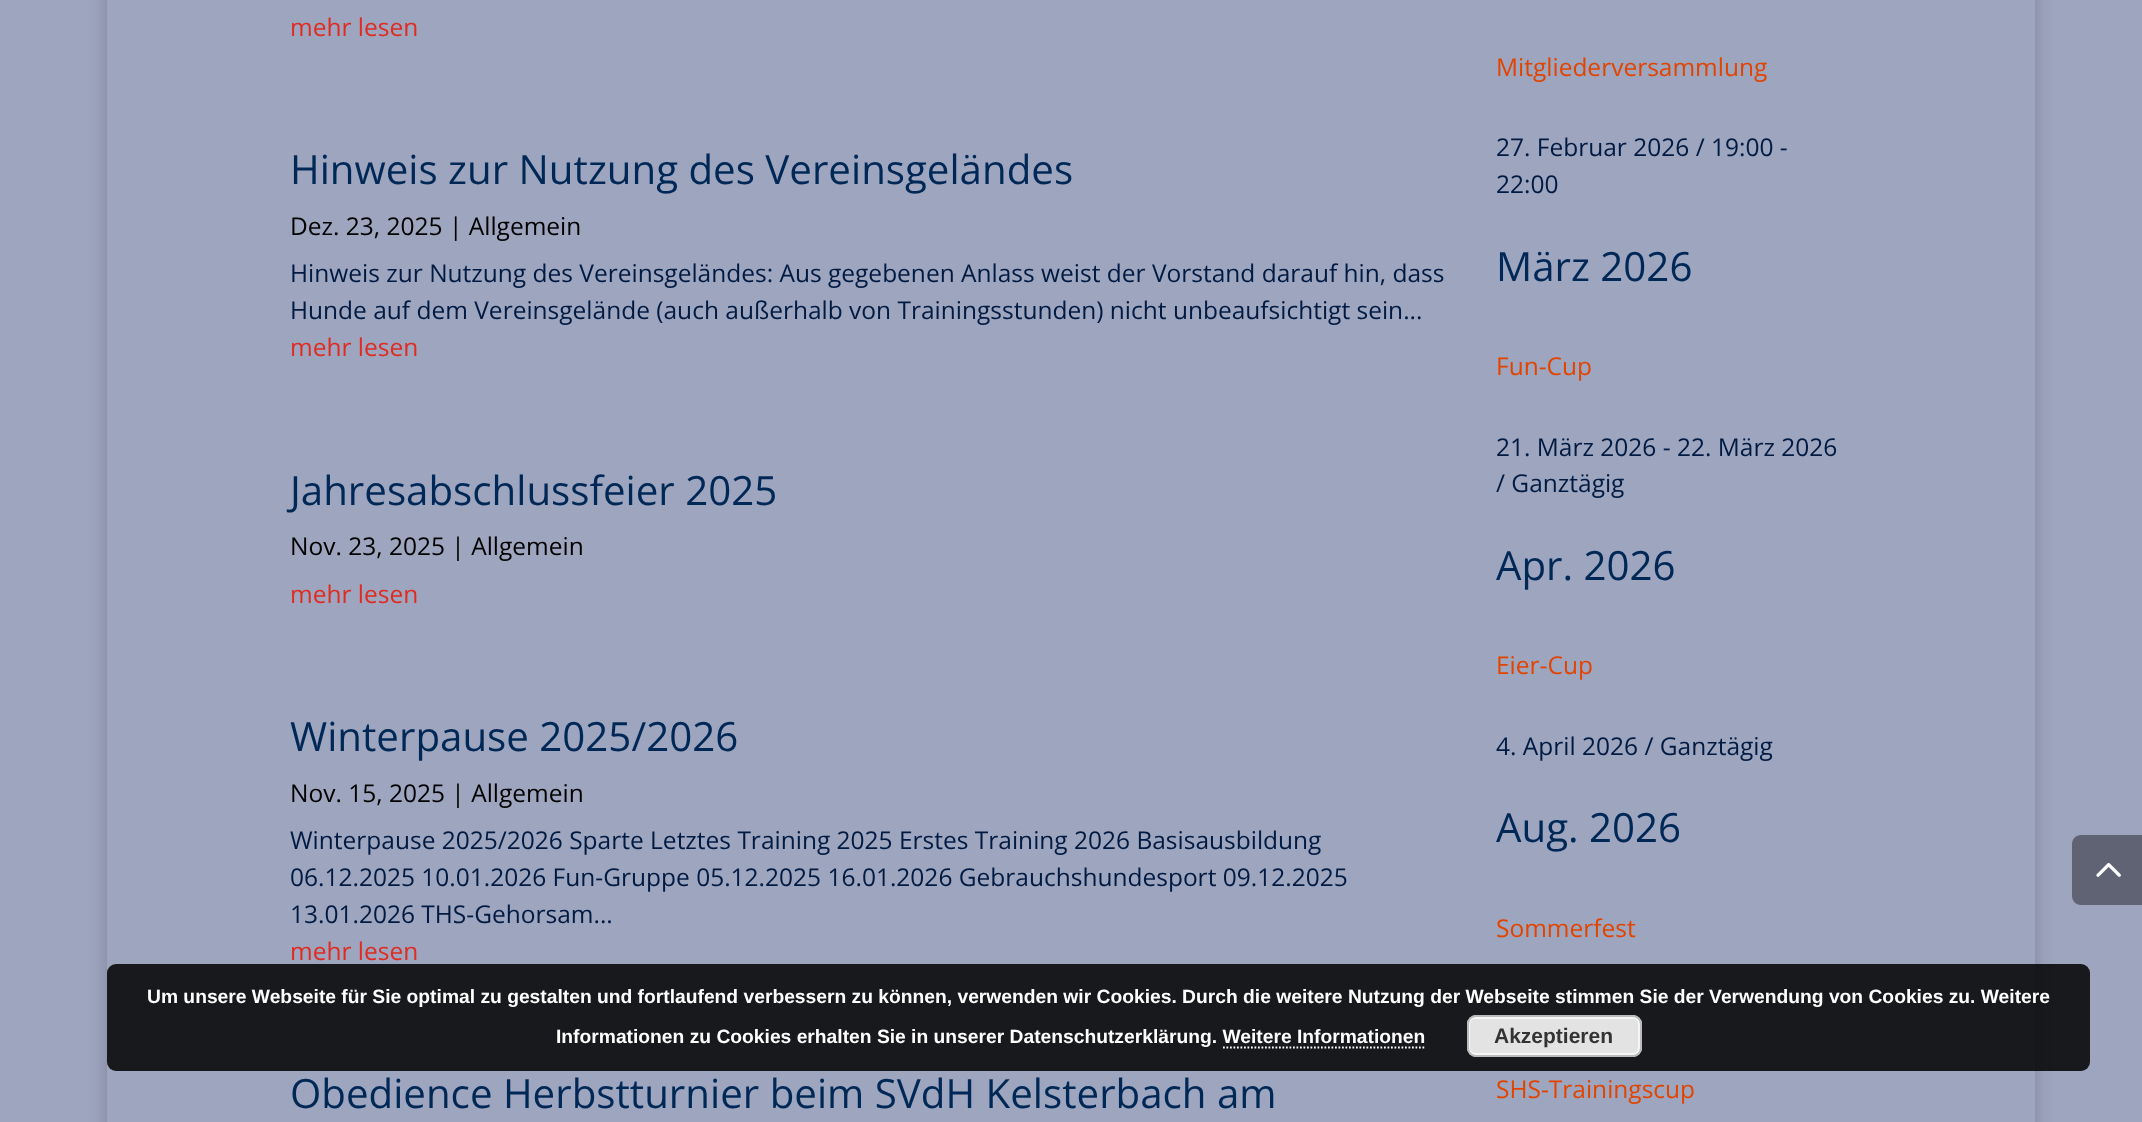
<svg xmlns="http://www.w3.org/2000/svg" width="2142" height="1122" viewBox="0 0 2142 1122">
  <defs>
    <clipPath id="clip1"><path d="M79 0H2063V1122H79ZM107-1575H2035V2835H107Z" clip-rule="evenodd"/></clipPath>
  </defs>
  <rect width="100%" height="100%" fill="rgb(158,165,191)"/>
  <g clip-path="url(#clip1)">
    <rect x="107" y="-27" width="1928" height="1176" fill="rgba(0,0,0,0.2)" filter="blur(9px)"/>
  </g>
  <text x="290" y="36" font-family="Open Sans" font-size="24.5" fill="rgb(224,43,32)">mehr lesen</text>
  <text x="290" y="184" font-family="Open Sans" font-size="40.25" fill="rgb(0,40,86)">Hinweis zur Nutzung des Vereinsgeländes</text>
  <text x="290" y="235" font-family="Open Sans" font-size="24.5" fill="rgb(0,0,0)">Dez. 23, 2025 | Allgemein</text>
  <g font-family="Open Sans" font-size="24.5" fill="rgb(0,26,66)">
    <text>
      <tspan x="290" y="282">Hinweis zur Nutzung des Vereinsgeländes: Aus gegebenen Anlass weist der Vorstand darauf hin, dass</tspan>
      <tspan x="290" y="319">Hunde auf dem Vereinsgelände (auch außerhalb von Trainingsstunden) nicht unbeaufsichtigt sein...</tspan>
    </text>
  </g>
  <text x="290" y="356" font-family="Open Sans" font-size="24.5" fill="rgb(224,43,32)">mehr lesen</text>
  <text x="290" y="505" font-family="Open Sans" font-size="40.25" fill="rgb(0,40,86)">Jahresabschlussfeier 2025</text>
  <text x="290" y="555" font-family="Open Sans" font-size="24.5" fill="rgb(0,0,0)">Nov. 23, 2025 | Allgemein</text>
  <text x="290" y="603" font-family="Open Sans" font-size="24.5" fill="rgb(224,43,32)">mehr lesen</text>
  <text x="290" y="751" font-family="Open Sans" font-size="40.25" fill="rgb(0,40,86)">Winterpause 2025/2026</text>
  <text x="290" y="802" font-family="Open Sans" font-size="24.5" fill="rgb(0,0,0)">Nov. 15, 2025 | Allgemein</text>
  <g font-family="Open Sans" font-size="24.5" fill="rgb(0,26,66)">
    <text>
      <tspan x="290" y="849">Winterpause 2025/2026 Sparte Letztes Training 2025 Erstes Training 2026 Basisausbildung</tspan>
      <tspan x="290" y="886">06.12.2025 10.01.2026 Fun-Gruppe 05.12.2025 16.01.2026 Gebrauchshundesport 09.12.2025</tspan>
      <tspan x="290" y="923">13.01.2026 THS-Gehorsam...</tspan>
    </text>
  </g>
  <text x="290" y="960" font-family="Open Sans" font-size="24.5" fill="rgb(224,43,32)">mehr lesen</text>
  <text x="290" y="1108" font-family="Open Sans" font-size="40.25" fill="rgb(0,40,86)">Obedience Herbstturnier beim SVdH Kelsterbach am</text>
  <text x="1496" y="76" font-family="Open Sans" font-size="24.5" fill="rgb(226,68,0)">Mitgliederversammlung</text>
  <g font-family="Open Sans" font-size="24.5" fill="rgb(0,26,66)">
    <text>
      <tspan x="1496" y="156">27. Februar 2026 / 19:00 -</tspan>
      <tspan x="1496" y="193">22:00</tspan>
    </text>
  </g>
  <text x="1496" y="281" font-family="Open Sans" font-size="40.25" fill="rgb(0,40,86)">März 2026</text>
  <text x="1496" y="375" font-family="Open Sans" font-size="24.5" fill="rgb(226,68,0)">Fun-Cup</text>
  <g font-family="Open Sans" font-size="24.5" fill="rgb(0,26,66)">
    <text>
      <tspan x="1496" y="456">21. März 2026 - 22. März 2026</tspan>
      <tspan x="1496" y="492">/ Ganztägig</tspan>
    </text>
  </g>
  <text x="1496" y="580" font-family="Open Sans" font-size="40.25" fill="rgb(0,40,86)">Apr. 2026</text>
  <text x="1496" y="674" font-family="Open Sans" font-size="24.5" fill="rgb(226,68,0)">Eier-Cup</text>
  <text x="1496" y="755" font-family="Open Sans" font-size="24.5" fill="rgb(0,26,66)">4. April 2026 / Ganztägig</text>
  <text x="1496" y="842" font-family="Open Sans" font-size="40.25" fill="rgb(0,40,86)">Aug. 2026</text>
  <g font-family="Open Sans" font-size="24.5" fill="rgb(226,68,0)">
    <text x="1496" y="937">Sommerfest</text>
    <text x="1496" y="1098">SHS-Trainingscup</text>
  </g>
  <path d="M2081 835H2142V905H2081C2076 905 2072 901 2072 896V844C2072 839 2076 835 2081 835Z" fill="rgb(95,99,115)"/>
  <image x="2096" y="863" width="25" height="14" href="pic1.png"/>
  <rect x="107" y="964" width="1983" height="107" rx="9" fill="rgba(0,0,0,0.85)"/>
  <g font-family="Liberation Sans" font-size="19.25" font-weight="bold" fill="rgb(255,255,255)">
    <text x="147" y="1003">Um unsere Webseite für Sie optimal zu gestalten und fortlaufend verbessern zu können, verwenden wir Cookies. Durch die weitere Nutzung der Webseite stimmen Sie der Verwendung von Cookies zu. Weitere</text>
    <text x="556" y="1043">Informationen zu Cookies erhalten Sie in unserer Datenschutzerklärung. Weitere Informationen</text>
  </g>
  <rect x="1467" y="1015" width="175" height="42" rx="9" fill="rgb(227,227,227)"/>
  <rect x="1469" y="1018" width="170" height="36" rx="6" fill="none" stroke="rgb(246,246,246)" stroke-width="2"/>
  <rect x="1468" y="1016" width="173" height="40" rx="8" fill="none" stroke="rgb(187,187,187)" stroke-width="2"/>
  <text x="1494" y="1043" font-family="Liberation Sans" font-size="21" font-weight="bold" fill="rgb(51,51,51)">Akzeptieren</text>
  <path d="M1223 1047.5H1424.5" fill="none" stroke="rgb(255,255,255)" stroke-width="1.8" stroke-dasharray="1.75 1.75"/>
</svg>
